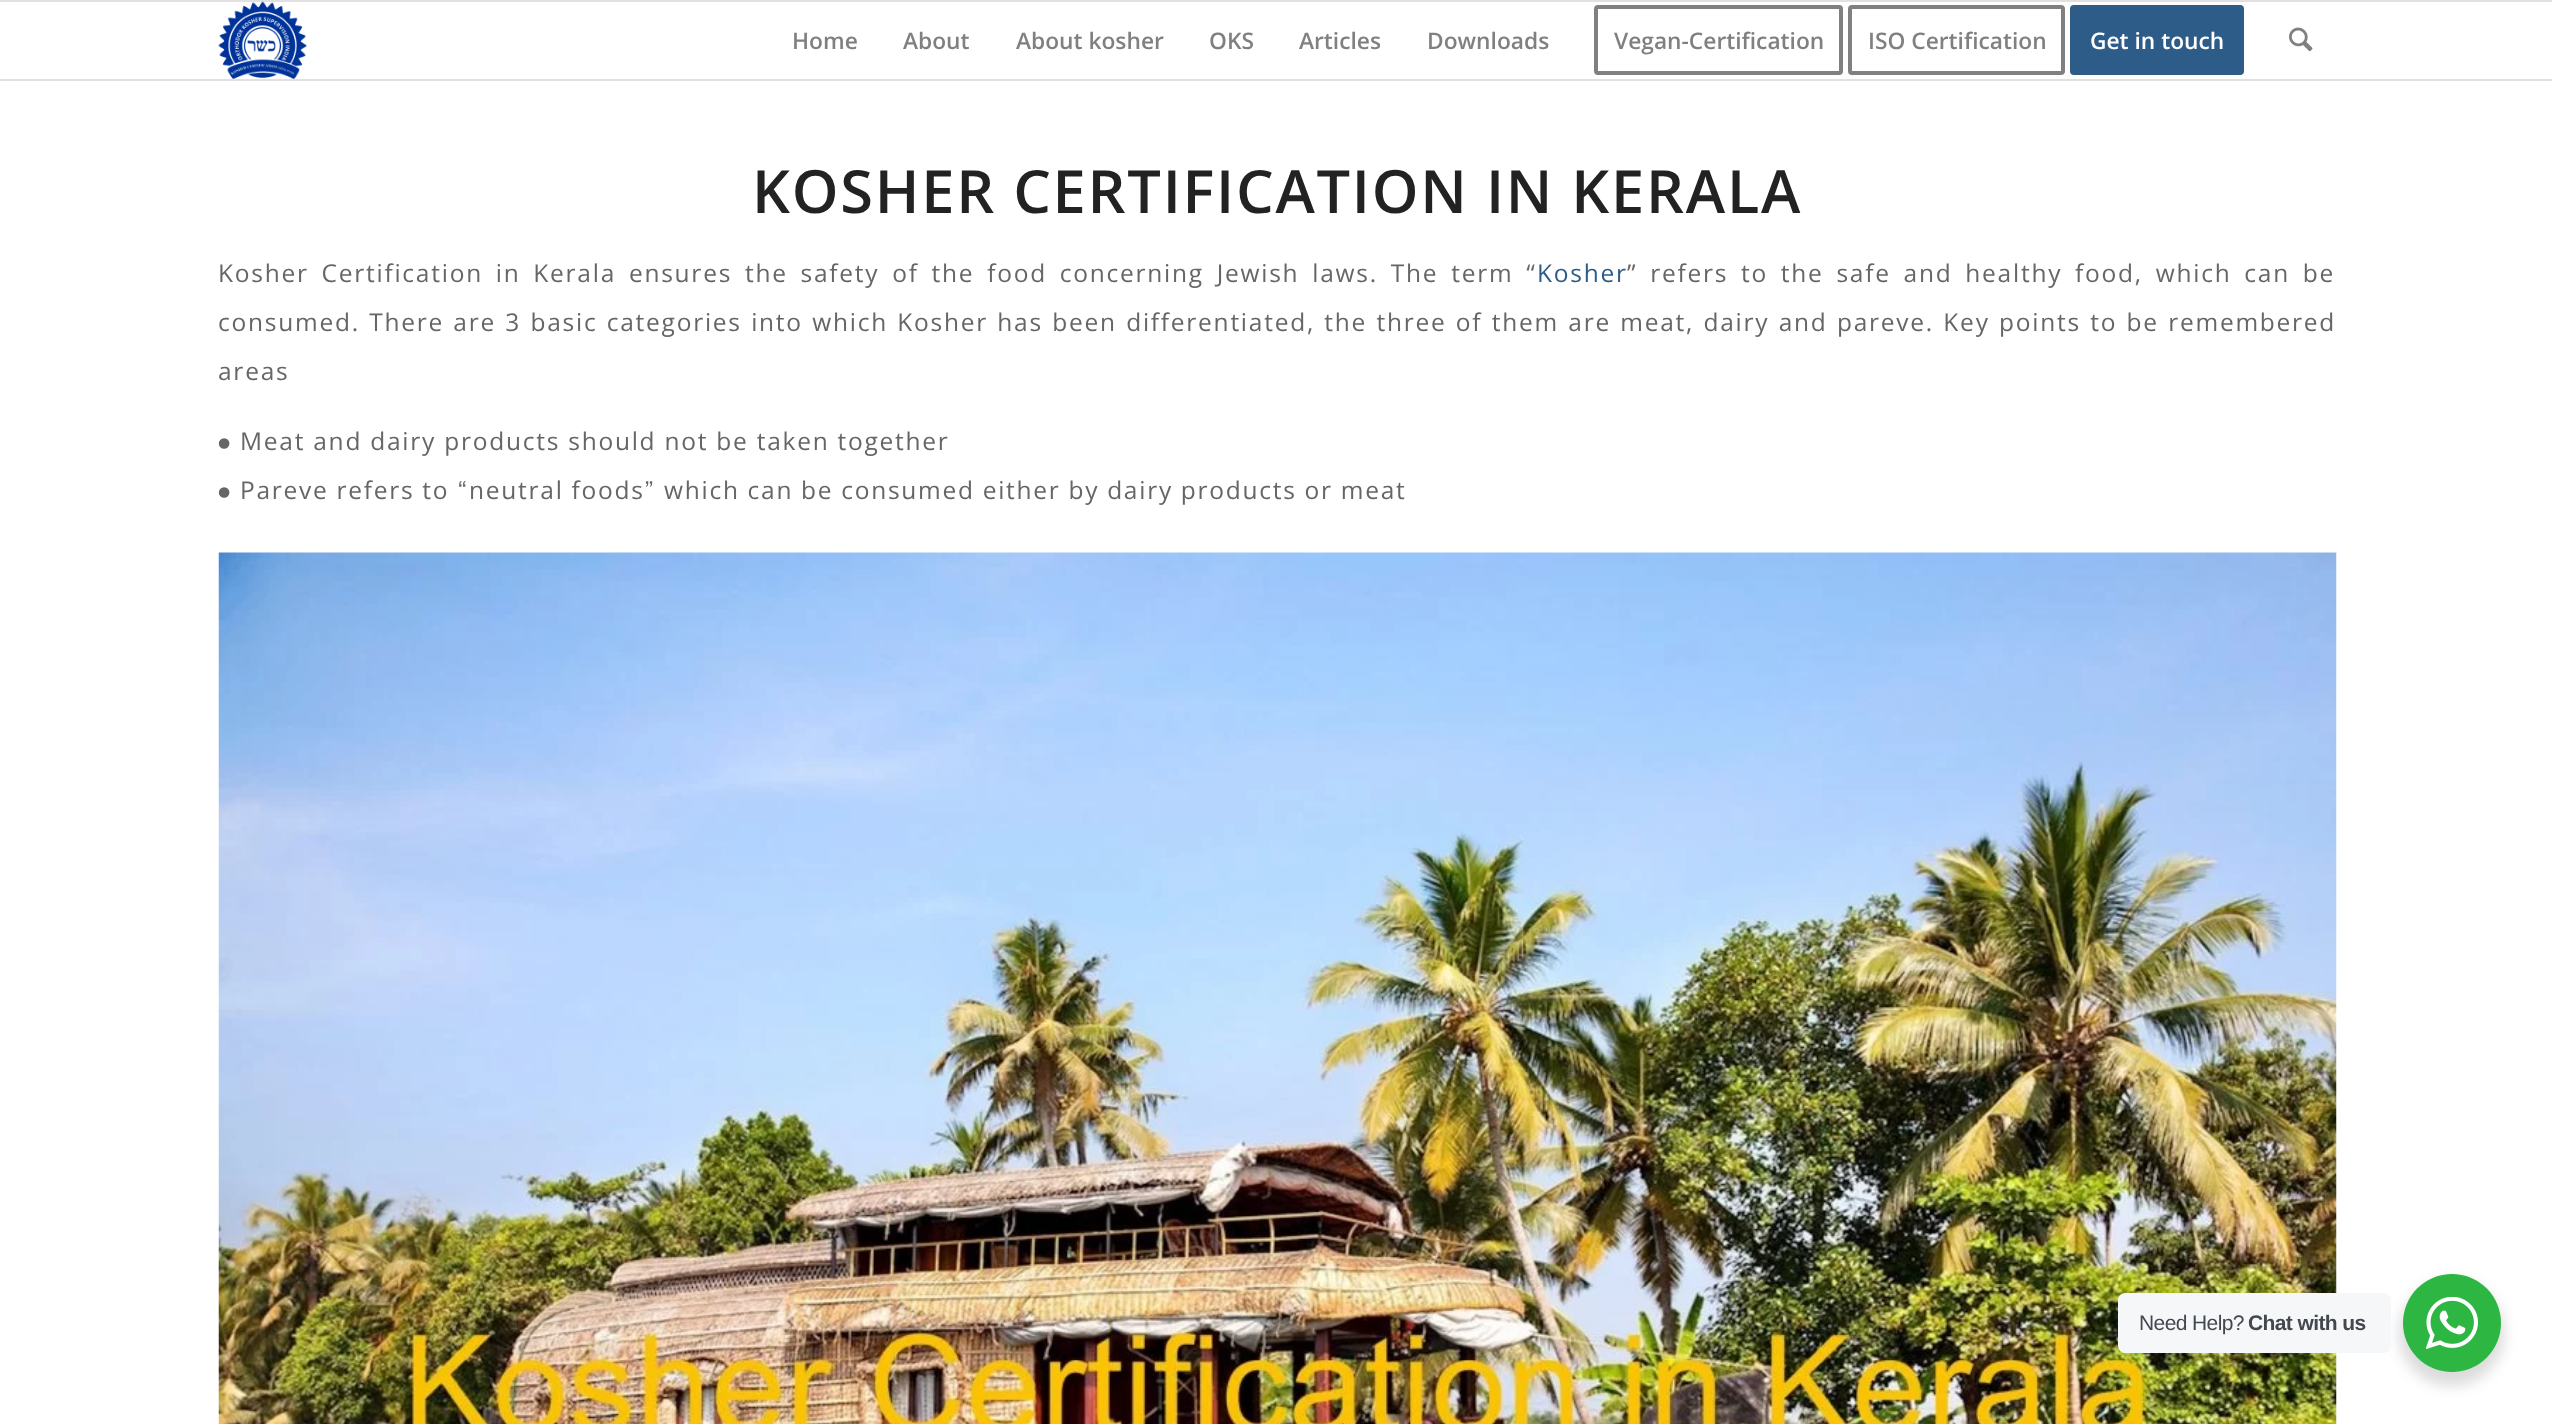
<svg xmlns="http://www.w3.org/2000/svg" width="2552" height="1424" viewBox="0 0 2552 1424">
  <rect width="100%" height="100%" fill="rgb(255,255,255)"/>
  <rect x="0" y="0" width="2552" height="2" fill="rgb(225,225,225)"/>
  <rect x="0" y="79" width="2552" height="2" fill="rgb(225,225,225)"/>
  <image x="218" y="1" width="89" height="78" href="pic1.png"/>
  <g font-family="Open Sans" font-size="22.75" font-weight="600" fill="rgb(128,128,128)">
    <text x="792" y="49">Home</text>
    <text x="903" y="49">About</text>
    <text x="1016" y="49">About kosher</text>
    <text x="1209" y="49">OKS</text>
    <text x="1299" y="49">Articles</text>
    <text x="1427" y="49">Downloads</text>
  </g>
  <rect x="1596" y="7" width="245" height="66" rx="2" fill="none" stroke="rgb(128,128,128)" stroke-width="4"/>
  <text x="1614" y="49" font-family="Open Sans" font-size="22.75" font-weight="600" fill="rgb(128,128,128)">Vegan-Certification</text>
  <rect x="1850" y="7" width="213" height="66" rx="2" fill="none" stroke="rgb(128,128,128)" stroke-width="4"/>
  <text x="1868" y="49" font-family="Open Sans" font-size="22.75" font-weight="600" fill="rgb(128,128,128)">ISO Certification</text>
  <rect x="2072" y="7" width="170" height="66" rx="2" fill="rgb(45,92,136)" stroke="rgb(45,92,136)" stroke-width="4"/>
  <text x="2090" y="49" font-family="Open Sans" font-size="22.75" font-weight="600" fill="rgb(255,255,255)">Get in touch</text>
  <image x="2289" y="27" width="24" height="25" href="pic2.png"/>
  <text x="752" y="213" font-family="Open Sans" font-size="59.5" font-weight="600" letter-spacing="1.75" fill="rgb(34,34,34)">KOSHER CERTIFICATION IN KERALA</text>
  <text x="218" y="282" word-spacing="4.75" font-family="Open Sans" font-size="24.5" letter-spacing="1.75" fill="rgb(102,102,102)">Kosher Certification in Kerala ensures the safety of the food concerning Jewish laws. The term “</text>
  <text x="1537" y="282" font-family="Open Sans" font-size="24.5" letter-spacing="1.75" fill="rgb(45,92,136)">Kosher</text>
  <g font-family="Open Sans" font-size="24.5" letter-spacing="1.75" fill="rgb(102,102,102)">
    <text x="1627" y="282" word-spacing="4.75">” refers to the safe and healthy food, which can be</text>
    <text x="218" y="331" word-spacing="1.25">consumed. There are 3 basic categories into which Kosher has been differentiated, the three of them are meat, dairy and pareve. Key points to be remembered</text>
    <text x="218" y="380">areas</text>
  </g>
  <text x="218" y="450" font-family="FreeSans" font-size="24.5" letter-spacing="1.75" fill="rgb(102,102,102)">⦁</text>
  <g font-family="Open Sans" font-size="24.5" letter-spacing="1.75" fill="rgb(102,102,102)">
    <text x="240" y="450">Meat and dairy products should not be taken together</text>
    <text x="240" y="499" word-spacing="-0.25">Pareve refers to</text>
  </g>
  <text x="457" y="499" font-family="FreeSans" font-size="24.5" letter-spacing="1.75" fill="rgb(102,102,102)">“</text>
  <text x="469" y="499" word-spacing="-0.25" font-family="Open Sans" font-size="24.5" letter-spacing="1.75" fill="rgb(102,102,102)">neutral foods</text>
  <text x="644" y="499" font-family="FreeSans" font-size="24.5" letter-spacing="1.75" fill="rgb(102,102,102)">”</text>
  <text x="664" y="499" word-spacing="-0.25" font-family="Open Sans" font-size="24.5" letter-spacing="1.75" fill="rgb(102,102,102)">which can be consumed either by dairy products or meat</text>
  <text x="218" y="499" font-family="FreeSans" font-size="24.5" letter-spacing="1.75" fill="rgb(102,102,102)">⦁</text>
  <image x="218" y="552" width="2119" height="872" href="pic3.png"/>
  <rect x="2399" y="1281" width="105" height="105" rx="52.5" fill="rgba(0,0,0,0.14)" filter="blur(7px)"/>
  <rect x="2118" y="1293" width="273" height="60" rx="7" fill="rgb(245,247,249)"/>
  <text x="2139" y="1330" font-family="Liberation Sans" font-size="21" letter-spacing="-0.6" fill="rgb(67,71,78)">Need Help?</text>
  <text x="2248" y="1330" font-family="Liberation Sans" font-size="21" font-weight="bold" letter-spacing="-0.6" fill="rgb(67,71,78)">Chat with us</text>
  <circle cx="2452" cy="1323" r="49" fill="rgb(45,183,66)"/>
  <image x="2426" y="1297" width="52" height="52" href="pic4.png"/>
</svg>
